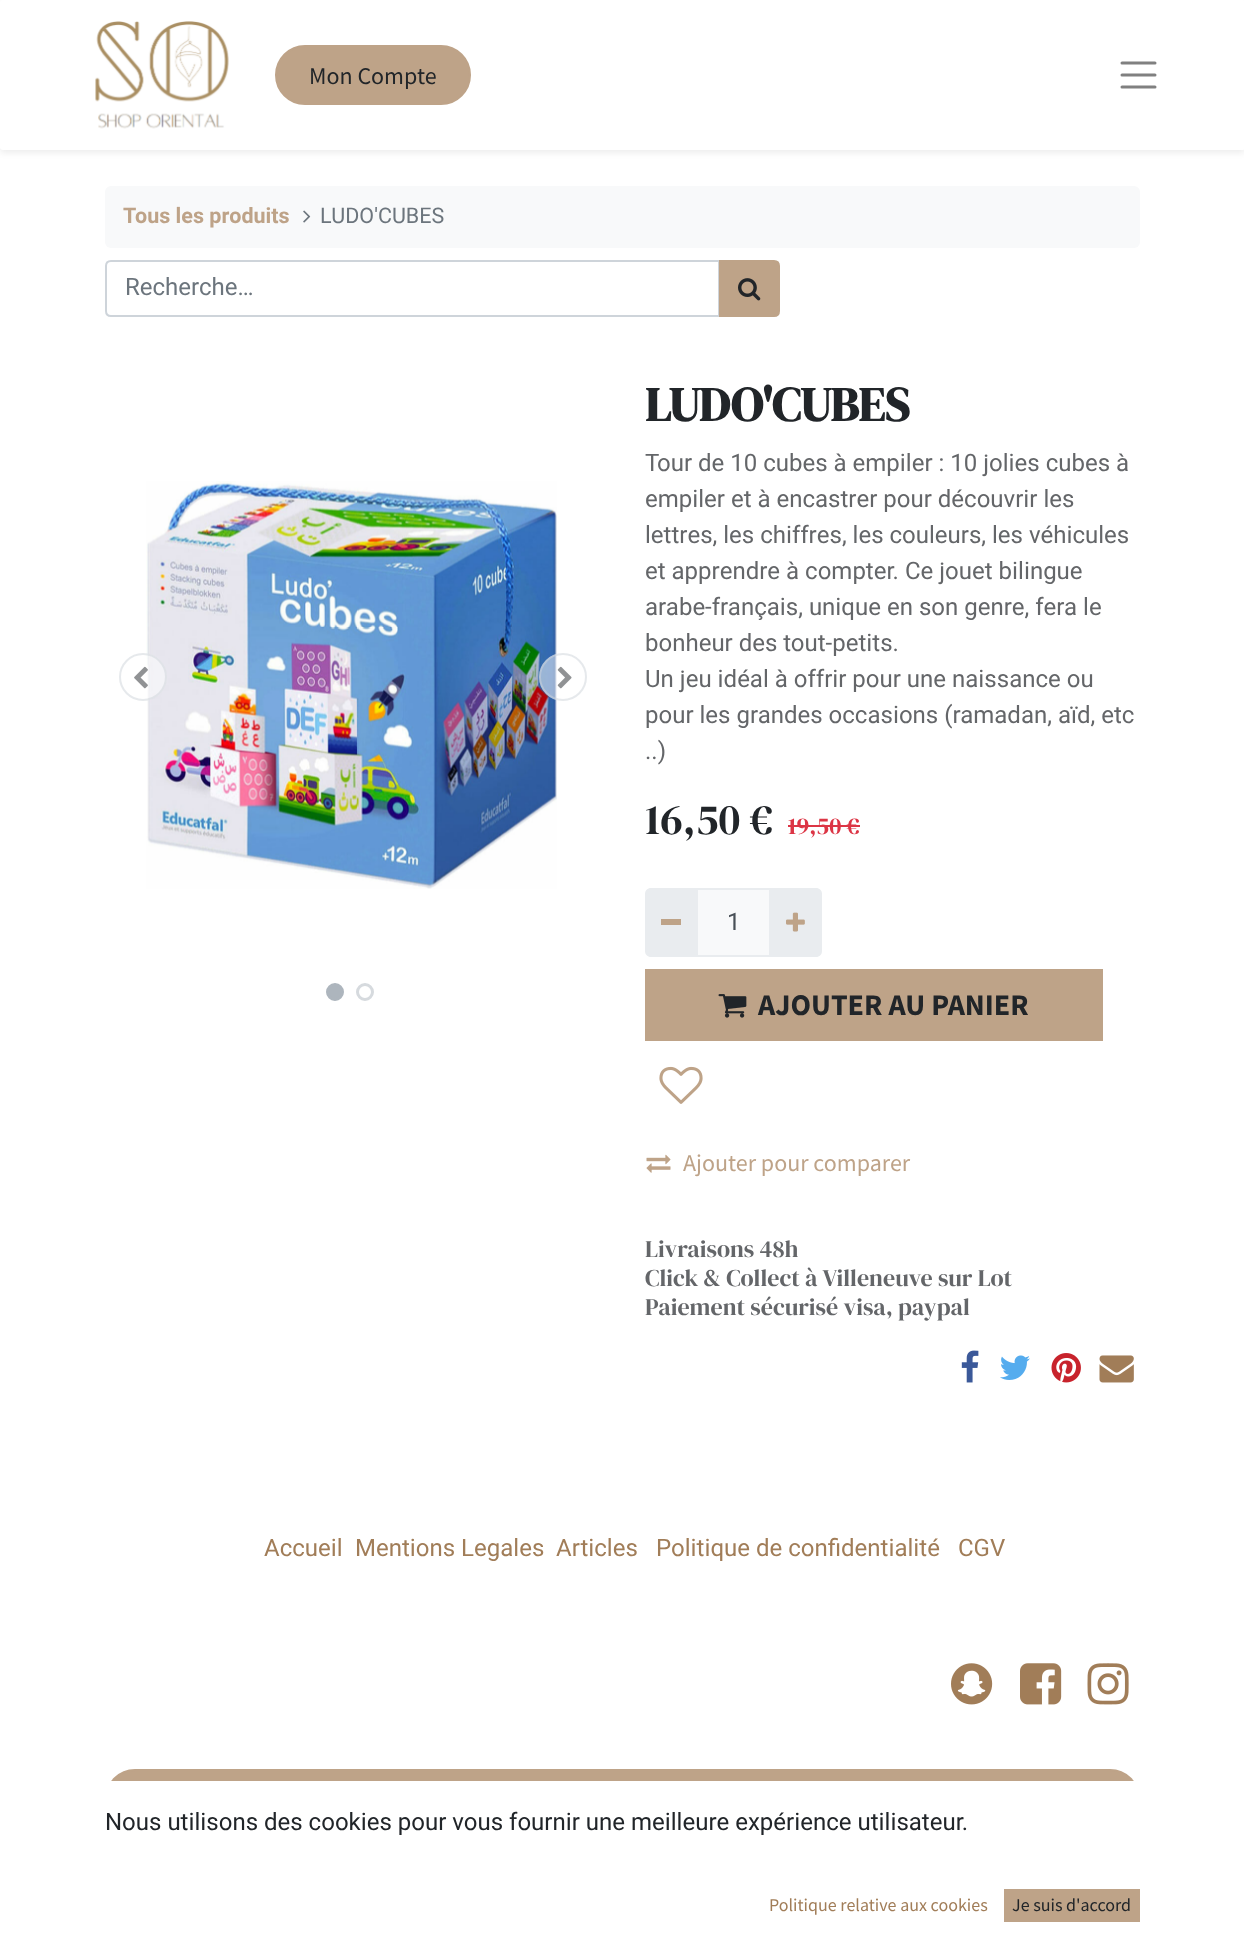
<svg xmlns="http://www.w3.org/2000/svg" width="1244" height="1945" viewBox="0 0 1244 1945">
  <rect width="100%" height="100%" fill="rgb(255,255,255)"/>
  <rect x="0" y="3" width="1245" height="150" rx="3" fill="rgba(0,0,0,0.07)" filter="blur(3px)"/>
  <rect x="0" y="0" width="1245" height="150" rx="3" fill="rgb(255,255,255)"/>
  <image x="95" y="21" width="134" height="108" href="pic1.png"/>
  <rect x="276" y="46" width="194" height="58" rx="29" fill="rgb(190,163,136)" stroke="rgb(190,163,136)" stroke-width="2"/>
  <text x="309" y="84" font-family="Source Sans Pro" font-size="24" fill="rgb(33,37,41)">Mon Compte</text>
  <path d="M1122 63H1155M1122 75H1155M1122 87H1155" fill="none" stroke="rgb(128,128,128)" stroke-width="3" stroke-linecap="round"/>
  <rect x="105" y="186" width="1035" height="62" rx="6" fill="rgb(248,249,250)"/>
  <text x="123" y="223" font-family="Heebo" font-size="21.5" font-weight="bold" fill="rgb(190,163,136)">Tous les produits</text>
  <image x="303" y="210" width="8" height="13" href="pic2.png"/>
  <text x="320" y="223" font-family="Heebo" font-size="21.5" fill="rgb(108,117,125)">LUDO'CUBES</text>
  <path d="M111 261H719V316H111C108 316 106 314 106 311V266C106 263 108 261 111 261Z" fill="none" stroke="rgb(206,212,218)" stroke-width="2"/>
  <text x="125" y="295" font-family="Heebo" font-size="24" fill="rgb(108,117,125)">Recherche…</text>
  <path d="M720 261H774C777 261 779 263 779 266V311C779 314 777 316 774 316H720Z" fill="rgb(190,163,136)" stroke="rgb(190,163,136)" stroke-width="2"/>
  <image x="738" y="278" width="23" height="23" href="pic3.png"/>
  <image x="146" y="481" width="411" height="408" href="pic5.png"/>
  <circle cx="143" cy="677" r="24" fill="rgba(255,255,255,0.5)"/>
  <circle cx="143" cy="677" r="23" fill="none" stroke="rgba(206,212,218,0.5)" stroke-width="2"/>
  <image x="134" y="666" width="14" height="23" href="pic4.png"/>
  <circle cx="563" cy="677" r="24" fill="rgba(255,255,255,0.5)"/>
  <circle cx="563" cy="677" r="23" fill="none" stroke="rgba(206,212,218,0.5)" stroke-width="2"/>
  <image x="557" y="666" width="15" height="23" href="pic6.png"/>
  <circle cx="335" cy="992" r="7.5" fill="rgb(173,181,189)" stroke="rgb(173,181,189)" stroke-width="3"/>
  <circle cx="365" cy="992" r="7.5" fill="none" stroke="rgb(214,218,222)" stroke-width="3"/>
  <text x="645" y="421" font-family="DM Serif Display" font-size="48" font-weight="bold" fill="rgb(33,37,41)">LUDO'CUBES</text>
  <g font-family="Heebo" font-size="24" fill="rgb(100,102,105)">
    <text>
      <tspan x="645" y="471">Tour de 10 cubes à empiler : 10 jolies cubes à</tspan>
      <tspan x="645" y="507">empiler et à encastrer pour découvrir les</tspan>
      <tspan x="645" y="543">lettres, les chiffres, les couleurs, les véhicules</tspan>
      <tspan x="645" y="579">et apprendre à compter. Ce jouet bilingue</tspan>
      <tspan x="645" y="615">arabe-français, unique en son genre, fera le</tspan>
      <tspan x="645" y="651">bonheur des tout-petits.</tspan>
      <tspan x="645" y="687">Un jeu idéal à offrir pour une naissance ou</tspan>
      <tspan x="645" y="723">pour les grandes occasions (ramadan, aïd, etc</tspan>
      <tspan x="645" y="759">..)</tspan>
    </text>
  </g>
  <text x="645" y="834" font-family="DM Serif Display" font-size="43" fill="rgb(33,37,41)">16,50 €</text>
  <text x="788" y="834" font-family="DM Serif Display" font-size="24" fill="rgb(220,53,69)">19,50 €</text>
  <rect x="788" y="825" width="72" height="2" fill="rgb(220,53,69)"/>
  <rect x="697" y="889" width="73" height="67" fill="rgb(248,249,250)" stroke="rgb(233,236,239)" stroke-width="2"/>
  <path d="M651 888H698V957H651C647.5 957 645 954.5 645 951V894C645 890.5 647.5 888 651 888Z" fill="rgb(233,236,239)"/>
  <rect x="661" y="919" width="20" height="6" fill="rgb(190,163,136)"/>
  <text x="727" y="930" font-family="Heebo" font-size="24" fill="rgb(73,80,87)">1</text>
  <path d="M770 888H816C819.5 888 822 890.5 822 894V951C822 954.5 819.5 957 816 957H770Z" fill="rgb(233,236,239)"/>
  <image x="786" y="912" width="19" height="20" href="pic7.png"/>
  <rect x="645" y="969" width="458" height="72" fill="rgb(190,163,136)"/>
  <image x="718" y="994" width="29" height="24" href="pic8.png"/>
  <text x="758" y="1015" font-family="Source Sans Pro" font-size="30" font-weight="bold" fill="rgb(33,37,41)">AJOUTER AU PANIER</text>
  <image x="659" y="1066" width="44" height="38" href="pic9.png"/>
  <image x="646" y="1154" width="25" height="19" href="pic10.png"/>
  <text x="683" y="1171" font-family="Source Sans Pro" font-size="24" fill="rgb(190,163,136)">Ajouter pour comparer</text>
  <g font-family="DM Serif Display" font-size="24" fill="rgb(100,102,105)">
    <text>
      <tspan x="645" y="1257">Livraisons 48h</tspan>
      <tspan x="645" y="1286">Click &amp; Collect à Villeneuve sur Lot</tspan>
      <tspan x="645" y="1315">Paiement sécurisé visa, paypal</tspan>
    </text>
  </g>
  <image x="961" y="1350" width="18" height="33" href="pic11.png"/>
  <image x="1000" y="1355" width="30" height="25" href="pic12.png"/>
  <image x="1051" y="1353" width="30" height="30" href="pic13.png"/>
  <image x="1099" y="1355" width="35" height="28" href="pic14.png"/>
  <g font-family="Heebo" font-size="24" fill="rgb(161,125,88)">
    <text x="264" y="1556">Accueil</text>
    <text x="355" y="1556">Mentions Legales</text>
    <text x="556" y="1556">Articles</text>
    <text x="656" y="1556">Politique de confidentialité</text>
    <text x="958" y="1556">CGV</text>
  </g>
  <image x="951" y="1663" width="42" height="42" href="pic15.png"/>
  <image x="1020" y="1663" width="42" height="42" href="pic16.png"/>
  <image x="1087" y="1663" width="42" height="42" href="pic17.png"/>
  <rect x="106" y="1770" width="1033" height="58" rx="29" fill="rgb(190,163,136)" stroke="rgb(190,163,136)" stroke-width="2"/>
  <rect x="105" y="1781" width="1035" height="48" fill="rgb(255,255,255)"/>
  <text x="105" y="1830" font-family="Heebo" font-size="24" fill="rgb(33,37,41)">Nous utilisons des cookies pour vous fournir une meilleure expérience utilisateur.</text>
  <text x="769" y="1911" font-family="Source Sans Pro" font-size="18" fill="rgb(161,125,88)">Politique relative aux cookies</text>
  <rect x="1004" y="1889" width="136" height="33" fill="rgb(190,163,136)"/>
  <text x="1012" y="1911" font-family="Source Sans Pro" font-size="18" fill="rgb(33,37,41)">Je suis d'accord</text>
</svg>
